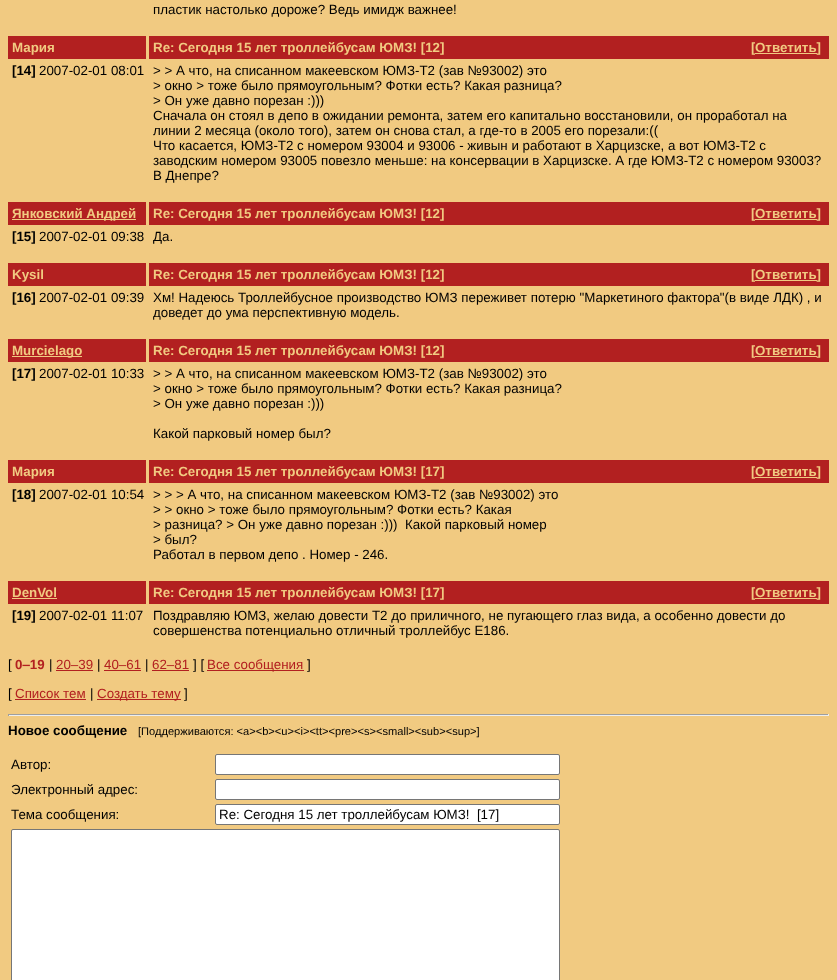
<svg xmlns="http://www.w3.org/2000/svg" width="837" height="980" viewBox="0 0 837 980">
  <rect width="100%" height="100%" fill="rgb(241,202,129)"/>
  <text x="153" y="14" font-family="Liberation Sans" font-size="13.33" fill="rgb(0,0,0)">пластик настолько дороже? Ведь имидж важнее!</text>
  <rect x="8" y="36" width="138" height="23" fill="rgb(178,32,32)"/>
  <text x="12" y="52" font-family="Liberation Sans" font-size="13.33" font-weight="bold" fill="rgb(241,202,129)">Мария</text>
  <rect x="149" y="36" width="680" height="23" fill="rgb(178,32,32)"/>
  <g font-family="Liberation Sans" font-size="13.33" font-weight="bold" fill="rgb(241,202,129)">
    <text x="153" y="52">Re: Сегодня 15 лет троллейбусам ЮМЗ! [12]</text>
    <text x="751" y="52">[</text>
  </g>
  <rect x="755" y="42" width="1" height="13" fill="rgb(178,32,32)"/>
  <rect x="755" y="53" width="62" height="1" fill="rgb(241,202,129)"/>
  <text x="755" y="52" font-family="Liberation Sans" font-size="13.33" font-weight="bold" fill="rgb(241,202,129)">Ответить]</text>
  <text x="12" y="75" font-family="Liberation Sans" font-size="13.33" font-weight="bold" fill="rgb(0,0,0)">[14]</text>
  <g font-family="Liberation Sans" font-size="13.33" fill="rgb(0,0,0)">
    <text x="39" y="75">2007-02-01 08:01</text>
    <text>
      <tspan x="153" y="75">&gt; &gt; А что, на списанном макеевском ЮМЗ-Т2 (зав №93002) это</tspan>
      <tspan x="153" y="90">&gt; окно &gt; тоже было прямоугольным? Фотки есть? Какая разница?</tspan>
      <tspan x="153" y="105">&gt; Он уже давно порезан :)))</tspan>
      <tspan x="153" y="120">Сначала он стоял в депо в ожидании ремонта, затем его капитально восстановили, он проработал на</tspan>
      <tspan x="153" y="135">линии 2 месяца (около того), затем он снова стал, а где-то в 2005 его порезали:((</tspan>
      <tspan x="153" y="150">Что касается, ЮМЗ-Т2 с номером 93004 и 93006 - живын и работают в Харцизске, а вот ЮМЗ-Т2 с</tspan>
      <tspan x="153" y="165">заводским номером 93005 повезло меньше: на консервации в Харцизске. А где ЮМЗ-Т2 с номером 93003?</tspan>
      <tspan x="153" y="180">В Днепре?</tspan>
    </text>
  </g>
  <rect x="8" y="202" width="138" height="23" fill="rgb(178,32,32)"/>
  <rect x="12" y="219" width="124" height="1" fill="rgb(241,202,129)"/>
  <text x="12" y="218" font-family="Liberation Sans" font-size="13.33" font-weight="bold" fill="rgb(241,202,129)">Янковский Андрей</text>
  <rect x="149" y="202" width="680" height="23" fill="rgb(178,32,32)"/>
  <g font-family="Liberation Sans" font-size="13.33" font-weight="bold" fill="rgb(241,202,129)">
    <text x="153" y="218">Re: Сегодня 15 лет троллейбусам ЮМЗ! [12]</text>
    <text x="751" y="218">[</text>
  </g>
  <rect x="755" y="208" width="1" height="13" fill="rgb(178,32,32)"/>
  <rect x="755" y="219" width="62" height="1" fill="rgb(241,202,129)"/>
  <text x="755" y="218" font-family="Liberation Sans" font-size="13.33" font-weight="bold" fill="rgb(241,202,129)">Ответить]</text>
  <text x="12" y="241" font-family="Liberation Sans" font-size="13.33" font-weight="bold" fill="rgb(0,0,0)">[15]</text>
  <g font-family="Liberation Sans" font-size="13.33" fill="rgb(0,0,0)">
    <text x="39" y="241">2007-02-01 09:38</text>
    <text x="153" y="241">Да.</text>
  </g>
  <rect x="8" y="263" width="138" height="23" fill="rgb(178,32,32)"/>
  <text x="12" y="279" font-family="Liberation Sans" font-size="13.33" font-weight="bold" fill="rgb(241,202,129)">Kysil</text>
  <rect x="149" y="263" width="680" height="23" fill="rgb(178,32,32)"/>
  <g font-family="Liberation Sans" font-size="13.33" font-weight="bold" fill="rgb(241,202,129)">
    <text x="153" y="279">Re: Сегодня 15 лет троллейбусам ЮМЗ! [12]</text>
    <text x="751" y="279">[</text>
  </g>
  <rect x="755" y="269" width="1" height="13" fill="rgb(178,32,32)"/>
  <rect x="755" y="280" width="62" height="1" fill="rgb(241,202,129)"/>
  <text x="755" y="279" font-family="Liberation Sans" font-size="13.33" font-weight="bold" fill="rgb(241,202,129)">Ответить]</text>
  <text x="12" y="302" font-family="Liberation Sans" font-size="13.33" font-weight="bold" fill="rgb(0,0,0)">[16]</text>
  <g font-family="Liberation Sans" font-size="13.33" fill="rgb(0,0,0)">
    <text x="39" y="302">2007-02-01 09:39</text>
    <text>
      <tspan x="153" y="302">Хм! Надеюсь Троллейбусное производство ЮМЗ переживет потерю "Маркетиного фактора"(в виде ЛДК) , и</tspan>
      <tspan x="153" y="317">доведет до ума перспективную модель.</tspan>
    </text>
  </g>
  <rect x="8" y="339" width="138" height="23" fill="rgb(178,32,32)"/>
  <rect x="12" y="356" width="70" height="1" fill="rgb(241,202,129)"/>
  <text x="12" y="355" font-family="Liberation Sans" font-size="13.33" font-weight="bold" fill="rgb(241,202,129)">Murcielago</text>
  <rect x="149" y="339" width="680" height="23" fill="rgb(178,32,32)"/>
  <g font-family="Liberation Sans" font-size="13.33" font-weight="bold" fill="rgb(241,202,129)">
    <text x="153" y="355">Re: Сегодня 15 лет троллейбусам ЮМЗ! [12]</text>
    <text x="751" y="355">[</text>
  </g>
  <rect x="755" y="345" width="1" height="13" fill="rgb(178,32,32)"/>
  <rect x="755" y="356" width="62" height="1" fill="rgb(241,202,129)"/>
  <text x="755" y="355" font-family="Liberation Sans" font-size="13.33" font-weight="bold" fill="rgb(241,202,129)">Ответить]</text>
  <text x="12" y="378" font-family="Liberation Sans" font-size="13.33" font-weight="bold" fill="rgb(0,0,0)">[17]</text>
  <g font-family="Liberation Sans" font-size="13.33" fill="rgb(0,0,0)">
    <text x="39" y="378">2007-02-01 10:33</text>
    <text>
      <tspan x="153" y="378">&gt; &gt; А что, на списанном макеевском ЮМЗ-Т2 (зав №93002) это</tspan>
      <tspan x="153" y="393">&gt; окно &gt; тоже было прямоугольным? Фотки есть? Какая разница?</tspan>
      <tspan x="153" y="408">&gt; Он уже давно порезан :)))</tspan>
    </text>
    <text x="153" y="438">Какой парковый номер был?</text>
  </g>
  <rect x="8" y="460" width="138" height="23" fill="rgb(178,32,32)"/>
  <text x="12" y="476" font-family="Liberation Sans" font-size="13.33" font-weight="bold" fill="rgb(241,202,129)">Мария</text>
  <rect x="149" y="460" width="680" height="23" fill="rgb(178,32,32)"/>
  <g font-family="Liberation Sans" font-size="13.33" font-weight="bold" fill="rgb(241,202,129)">
    <text x="153" y="476">Re: Сегодня 15 лет троллейбусам ЮМЗ! [17]</text>
    <text x="751" y="476">[</text>
  </g>
  <rect x="755" y="466" width="1" height="13" fill="rgb(178,32,32)"/>
  <rect x="755" y="477" width="62" height="1" fill="rgb(241,202,129)"/>
  <text x="755" y="476" font-family="Liberation Sans" font-size="13.33" font-weight="bold" fill="rgb(241,202,129)">Ответить]</text>
  <text x="12" y="499" font-family="Liberation Sans" font-size="13.33" font-weight="bold" fill="rgb(0,0,0)">[18]</text>
  <g font-family="Liberation Sans" font-size="13.33" fill="rgb(0,0,0)">
    <text x="39" y="499">2007-02-01 10:54</text>
    <text xml:space="preserve"><tspan x="153" y="499">&gt; &gt; &gt; А что, на списанном макеевском ЮМЗ-Т2 (зав №93002) это</tspan><tspan x="153" y="514">&gt; &gt; окно &gt; тоже было прямоугольным? Фотки есть? Какая</tspan><tspan x="153" y="529">&gt; разница? &gt; Он уже давно порезан :)))  Какой парковый номер</tspan><tspan x="153" y="544">&gt; был?</tspan><tspan x="153" y="559">Работал в первом депо . Номер - 246.</tspan></text>
  </g>
  <rect x="8" y="581" width="138" height="23" fill="rgb(178,32,32)"/>
  <text x="12" y="597" font-family="Liberation Sans" font-size="13.33" font-weight="bold" fill="rgb(241,202,129)">DenVol</text>
  <rect x="12" y="598" width="45" height="1" fill="rgb(241,202,129)"/>
  <rect x="149" y="581" width="680" height="23" fill="rgb(178,32,32)"/>
  <g font-family="Liberation Sans" font-size="13.33" font-weight="bold" fill="rgb(241,202,129)">
    <text x="153" y="597">Re: Сегодня 15 лет троллейбусам ЮМЗ! [17]</text>
    <text x="751" y="597">[</text>
  </g>
  <rect x="755" y="587" width="1" height="13" fill="rgb(178,32,32)"/>
  <rect x="755" y="598" width="62" height="1" fill="rgb(241,202,129)"/>
  <text x="755" y="597" font-family="Liberation Sans" font-size="13.33" font-weight="bold" fill="rgb(241,202,129)">Ответить]</text>
  <text x="12" y="620" font-family="Liberation Sans" font-size="13.33" font-weight="bold" fill="rgb(0,0,0)">[19]</text>
  <g font-family="Liberation Sans" font-size="13.33" fill="rgb(0,0,0)">
    <text x="39" y="620">2007-02-01 11:07</text>
    <text>
      <tspan x="153" y="620">Поздравляю ЮМЗ, желаю довести Т2 до приличного, не пугающего глаз вида, а особенно довести до</tspan>
      <tspan x="153" y="635">совершенства потенциально отличный троллейбус Е186.</tspan>
    </text>
    <text x="8" y="669">[</text>
  </g>
  <text x="15" y="669" font-family="Liberation Sans" font-size="13.33" font-weight="bold" fill="rgb(178,32,32)">0‒19</text>
  <text x="49" y="669" font-family="Liberation Sans" font-size="13.33" fill="rgb(0,0,0)">|</text>
  <text x="56" y="669" font-family="Liberation Sans" font-size="13.33" fill="rgb(178,32,32)">20‒39</text>
  <rect x="56" y="670" width="37" height="1" fill="rgb(178,32,32)"/>
  <text x="97" y="669" font-family="Liberation Sans" font-size="13.33" fill="rgb(0,0,0)">|</text>
  <text x="104" y="669" font-family="Liberation Sans" font-size="13.33" fill="rgb(178,32,32)">40‒61</text>
  <rect x="104" y="670" width="37" height="1" fill="rgb(178,32,32)"/>
  <text x="145" y="669" font-family="Liberation Sans" font-size="13.33" fill="rgb(0,0,0)">|</text>
  <text x="152" y="669" font-family="Liberation Sans" font-size="13.33" fill="rgb(178,32,32)">62‒81</text>
  <rect x="152" y="670" width="37" height="1" fill="rgb(178,32,32)"/>
  <text x="193" y="669" font-family="Liberation Sans" font-size="13.33" fill="rgb(0,0,0)">] [</text>
  <rect x="207" y="670" width="97" height="1" fill="rgb(178,32,32)"/>
  <text x="207" y="669" font-family="Liberation Sans" font-size="13.33" fill="rgb(178,32,32)">Все сообщения</text>
  <g font-family="Liberation Sans" font-size="13.33" fill="rgb(0,0,0)">
    <text x="307" y="669">]</text>
    <text x="8" y="698">[</text>
  </g>
  <text x="15" y="698" font-family="Liberation Sans" font-size="13.33" fill="rgb(178,32,32)">Список тем</text>
  <rect x="15" y="699" width="71" height="1" fill="rgb(178,32,32)"/>
  <text x="90" y="698" font-family="Liberation Sans" font-size="13.33" fill="rgb(0,0,0)">|</text>
  <rect x="97" y="699" width="84" height="1" fill="rgb(178,32,32)"/>
  <text x="97" y="698" font-family="Liberation Sans" font-size="13.33" fill="rgb(178,32,32)">Создать тему</text>
  <text x="184" y="698" font-family="Liberation Sans" font-size="13.33" fill="rgb(0,0,0)">]</text>
  <rect x="8" y="714" width="821" height="1" fill="rgb(159,159,159)"/>
  <rect x="828" y="714" width="1" height="2" fill="rgb(238,238,238)"/>
  <rect x="8" y="715" width="821" height="1" fill="rgb(238,238,238)"/>
  <rect x="8" y="714" width="1" height="2" fill="rgb(159,159,159)"/>
  <text x="8" y="735" font-family="Liberation Sans" font-size="13.33" font-weight="bold" fill="rgb(0,0,0)">Новое сообщение</text>
  <text x="138" y="735" font-family="Liberation Sans" font-size="11.1" fill="rgb(0,0,0)">[Поддерживаются: &lt;a&gt;&lt;b&gt;&lt;u&gt;&lt;i&gt;&lt;tt&gt;&lt;pre&gt;&lt;s&gt;&lt;small&gt;&lt;sub&gt;&lt;sup&gt;]</text>
  <text x="11" y="769" font-family="Liberation Sans" font-size="13.33" fill="rgb(0,0,0)">Автор:</text>
  <rect x="215.5" y="754.5" width="344" height="20" rx="1.5" fill="rgb(255,255,255)" stroke="rgb(118,118,118)"/>
  <text x="11" y="794" font-family="Liberation Sans" font-size="13.33" fill="rgb(0,0,0)">Электронный адрес:</text>
  <rect x="215.5" y="779.5" width="344" height="20" rx="1.5" fill="rgb(255,255,255)" stroke="rgb(118,118,118)"/>
  <text x="11" y="819" font-family="Liberation Sans" font-size="13.33" fill="rgb(0,0,0)">Тема сообщения:</text>
  <rect x="215.5" y="804.5" width="344" height="20" rx="1.5" fill="rgb(255,255,255)" stroke="rgb(118,118,118)"/>
  <text x="219" y="819" font-family="Liberation Sans" font-size="13.33" fill="rgb(0,0,0)" xml:space="preserve">Re: Сегодня 15 лет троллейбусам ЮМЗ!  [17]</text>
  <rect x="11.5" y="829.5" width="548" height="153" rx="1.5" fill="rgb(255,255,255)" stroke="rgb(118,118,118)"/>
</svg>
